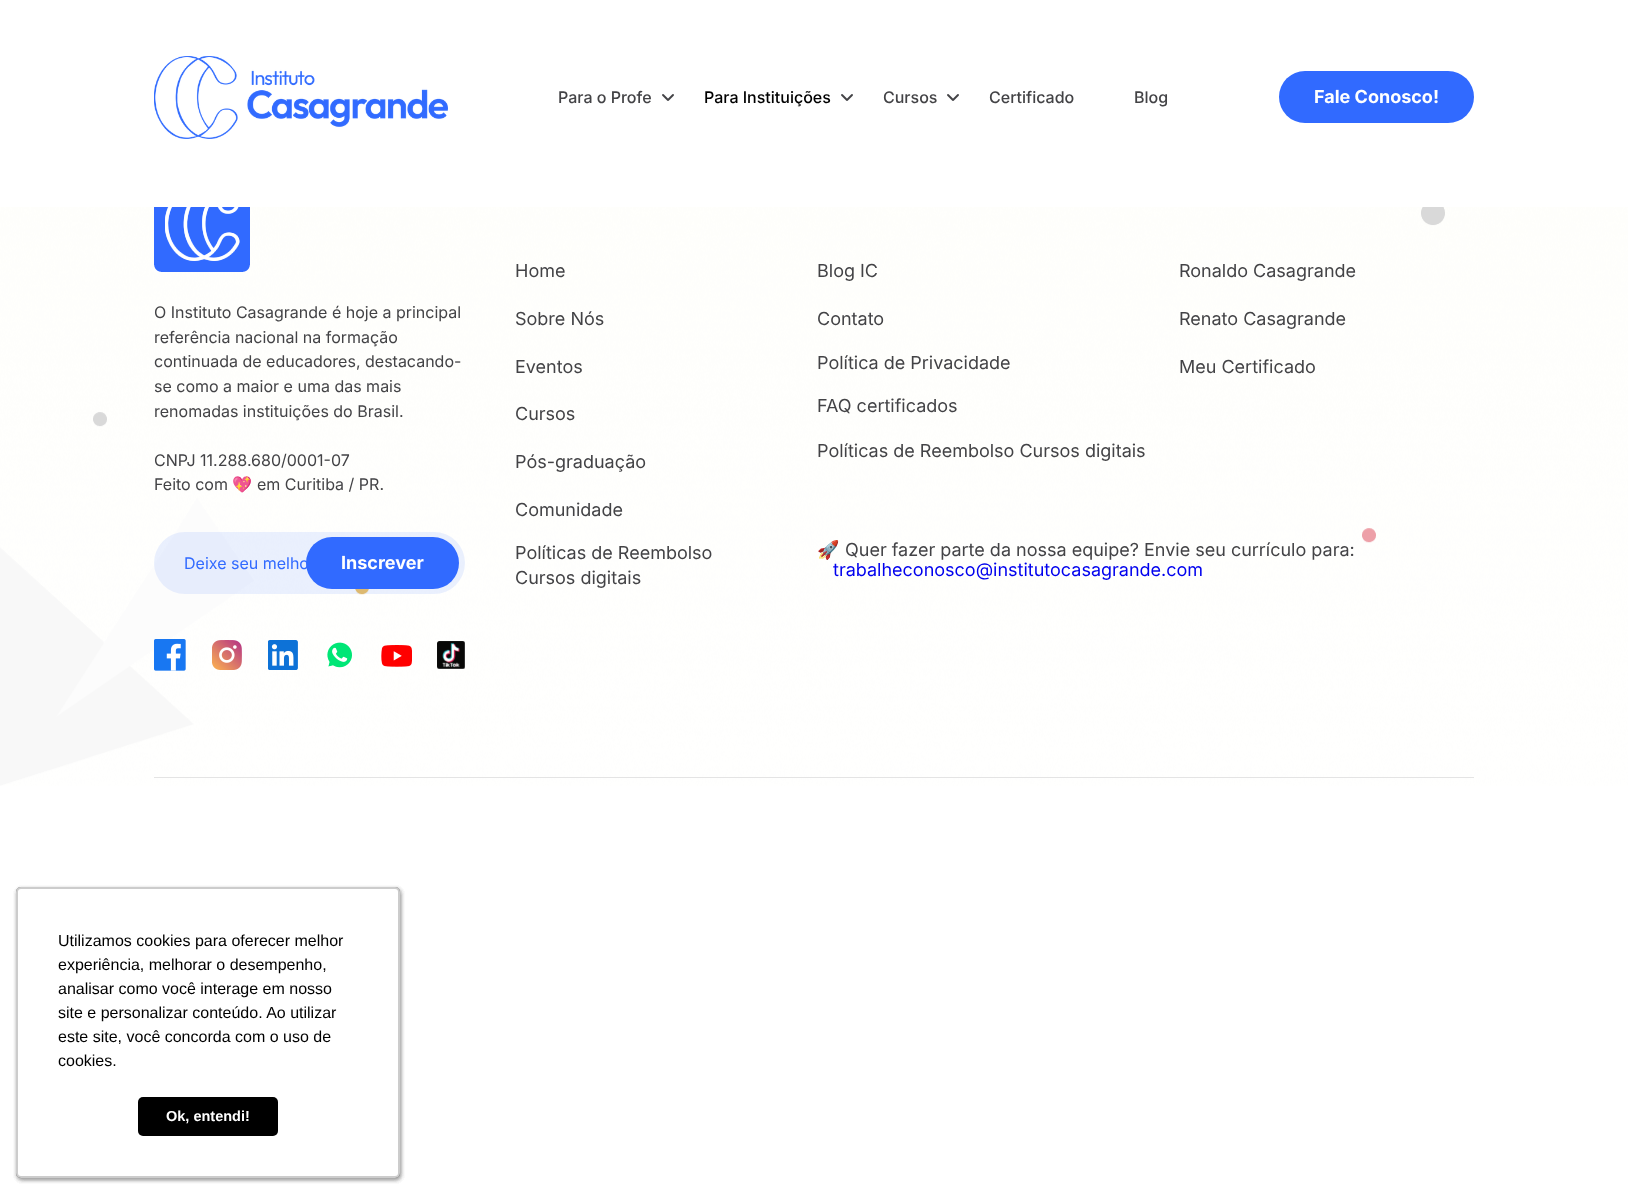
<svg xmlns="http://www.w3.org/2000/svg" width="1628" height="1194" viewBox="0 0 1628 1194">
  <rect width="100%" height="100%" fill="rgb(255,255,255)"/>
  <image x="0" y="207" width="1628" height="579" href="pic1.png"/>
  <image x="154" y="56" width="294" height="83" href="pic2.png"/>
  <text x="558" y="103" font-family="Inter" font-size="16" font-weight="500" fill="rgb(67,67,70)">Para o Profe</text>
  <image x="662" y="94" width="12" height="7" href="pic3.png"/>
  <text x="704" y="103" font-family="Inter" font-size="16" font-weight="500" fill="rgb(0,0,0)">Para Instituições</text>
  <image x="841" y="94" width="12" height="7" href="pic3.png"/>
  <text x="883" y="103" font-family="Inter" font-size="16" font-weight="500" fill="rgb(67,67,70)">Cursos</text>
  <image x="947" y="94" width="12" height="7" href="pic3.png"/>
  <g font-family="Inter" font-size="16" font-weight="500" fill="rgb(67,67,70)">
    <text x="989" y="103">Certificado</text>
    <text x="1134" y="103">Blog</text>
  </g>
  <rect x="1279" y="71" width="195" height="52" rx="26" fill="rgb(49,106,255)"/>
  <text x="1314" y="103" font-family="Inter" font-size="18" font-weight="bold" fill="rgb(255,255,255)">Fale Conosco!</text>
  <image x="154" y="207" width="96" height="65" href="pic4.png"/>
  <g font-family="Inter" font-size="16" fill="rgb(67,67,70)">
    <text>
      <tspan x="154" y="318">O Instituto Casagrande é hoje a principal</tspan>
      <tspan x="154" y="343">referência nacional na formação</tspan>
      <tspan x="154" y="367">continuada de educadores, destacando-</tspan>
      <tspan x="154" y="392">se como a maior e uma das mais</tspan>
      <tspan x="154" y="417">renomadas instituições do Brasil.</tspan>
    </text>
    <text>
      <tspan x="154" y="466">CNPJ 11.288.680/0001-07</tspan>
      <tspan x="154" y="490">Feito com</tspan>
    </text>
  </g>
  <text x="232" y="490" font-family="Noto Color Emoji" font-size="16" fill="rgb(67,67,70)">💖</text>
  <text x="257" y="490" font-family="Inter" font-size="16" fill="rgb(67,67,70)">em Curitiba / PR.</text>
  <rect x="154" y="532" width="311" height="62" rx="31" fill="rgba(49,106,255,0.1)"/>
  <text x="184" y="569" font-family="Inter" font-size="16" fill="rgb(49,106,255)">Deixe seu melho</text>
  <rect x="306" y="537" width="153" height="52" rx="26" fill="rgb(49,106,255)"/>
  <text x="341" y="569" font-family="Inter" font-size="18" font-weight="bold" fill="rgb(255,255,255)">Inscrever</text>
  <image x="154" y="639" width="32" height="32" href="pic5.png"/>
  <image x="212" y="640" width="30" height="30" href="pic6.png"/>
  <image x="268" y="640" width="30" height="30" href="pic7.png"/>
  <image x="327" y="642" width="25" height="26" href="pic8.png"/>
  <image x="381" y="645" width="31" height="22" href="pic9.png"/>
  <image x="437" y="641" width="28" height="28" href="pic10.png"/>
  <g font-family="Inter" font-size="18" fill="rgb(67,67,70)">
    <text x="515" y="277">Home</text>
    <text x="515" y="325">Sobre Nós</text>
    <text x="515" y="373">Eventos</text>
    <text x="515" y="420">Cursos</text>
    <text x="515" y="468">Pós-graduação</text>
    <text x="515" y="516">Comunidade</text>
    <text x="817" y="277">Blog IC</text>
    <text x="817" y="325">Contato</text>
    <text x="817" y="369">Política de Privacidade</text>
    <text x="817" y="412">FAQ certificados</text>
    <text x="817" y="457">Políticas de Reembolso Cursos digitais</text>
    <text x="1179" y="277">Ronaldo Casagrande</text>
    <text x="1179" y="325">Renato Casagrande</text>
    <text x="1179" y="373">Meu Certificado</text>
    <text>
      <tspan x="515" y="559">Políticas de Reembolso</tspan>
      <tspan x="515" y="584">Cursos digitais</tspan>
    </text>
  </g>
  <text x="817" y="556" font-family="Noto Color Emoji" font-size="18" fill="rgb(67,67,70)">🚀</text>
  <text x="845" y="556" font-family="Inter" font-size="18" fill="rgb(67,67,70)">Quer fazer parte da nossa equipe? Envie seu currículo para:</text>
  <text x="833" y="576" font-family="Inter" font-size="18" fill="rgb(0,0,238)">trabalheconosco@institutocasagrande.com</text>
  <rect x="154" y="777" width="1320" height="1" fill="rgb(228,228,228)"/>
  <rect x="17" y="889" width="384" height="291" rx="5" fill="rgba(0,0,0,0.1)" filter="blur(2px)"/>
  <rect x="17" y="888" width="382" height="289" rx="4" fill="none" stroke="rgba(0,0,0,0.2)" stroke-width="2"/>
  <rect x="17" y="889" width="384" height="291" rx="5" fill="rgba(0,0,0,0.1)" filter="blur(2px)"/>
  <rect x="17" y="888" width="382" height="289" rx="4" fill="none" stroke="rgba(0,0,0,0.2)" stroke-width="2"/>
  <rect x="17" y="889" width="384" height="291" rx="5" fill="rgba(0,0,0,0.1)" filter="blur(2px)"/>
  <rect x="17" y="888" width="382" height="289" rx="4" fill="none" stroke="rgba(0,0,0,0.2)" stroke-width="2"/>
  <rect x="17" y="889" width="384" height="291" rx="5" fill="rgba(0,0,0,0.1)" filter="blur(2px)"/>
  <rect x="17" y="888" width="382" height="289" rx="4" fill="none" stroke="rgba(0,0,0,0.2)" stroke-width="2"/>
  <rect x="17" y="889" width="384" height="291" rx="5" fill="rgba(0,0,0,0.1)" filter="blur(2px)"/>
  <rect x="16" y="887" width="384" height="291" rx="5" fill="rgb(255,255,255)"/>
  <rect x="17" y="888" width="382" height="289" rx="4" fill="none" stroke="rgba(0,0,0,0.2)" stroke-width="2"/>
  <g font-family="Liberation Sans" font-size="16" fill="rgb(0,0,0)">
    <text>
      <tspan x="58" y="946">Utilizamos cookies para oferecer melhor</tspan>
      <tspan x="58" y="970">experiência, melhorar o desempenho,</tspan>
      <tspan x="58" y="994">analisar como você interage em nosso</tspan>
      <tspan x="58" y="1018">site e personalizar conteúdo. Ao utilizar</tspan>
      <tspan x="58" y="1042">este site, você concorda com o uso de</tspan>
      <tspan x="58" y="1066">cookies.</tspan>
    </text>
  </g>
  <rect x="138" y="1097" width="140" height="39" rx="5" fill="rgb(0,0,0)"/>
  <text x="166" y="1121" font-family="Liberation Sans" font-size="14.5" font-weight="bold" fill="rgb(255,255,255)">Ok, entendi!</text>
</svg>
